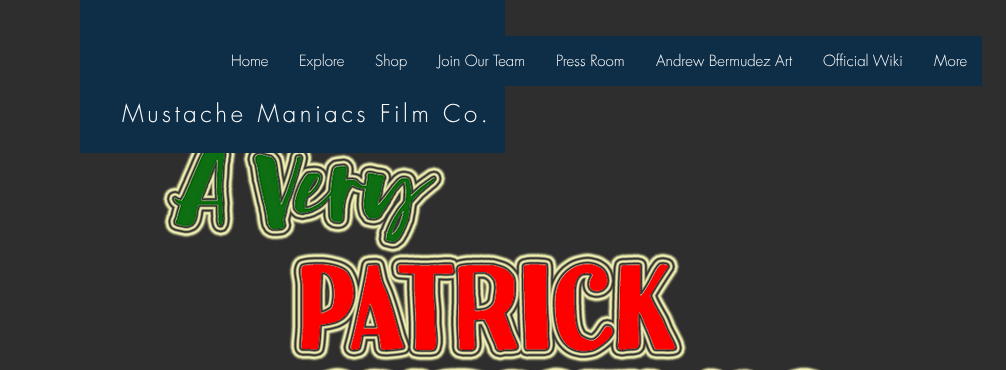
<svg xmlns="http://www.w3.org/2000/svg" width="1006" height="370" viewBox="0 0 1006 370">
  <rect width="100%" height="100%" fill="rgb(47,46,46)"/>
  <rect x="505" y="36" width="477" height="50" fill="rgb(14,46,71)"/>
  <rect x="80" y="0" width="425" height="153" fill="rgb(14,46,71)"/>
  <g font-family="futura" font-size="15" font-weight="300" fill="rgb(255,255,255)">
    <text x="231" y="66">Home</text>
    <text x="299" y="66">Explore</text>
    <text x="375" y="66">Shop</text>
    <text x="438" y="66">Join Our Team</text>
    <text x="556" y="66">Press Room</text>
    <text x="656" y="66">Andrew Bermudez Art</text>
    <text x="823" y="66">Official Wiki</text>
    <text x="934" y="66">More</text>
  </g>
  <text x="122" y="122" font-family="futura" font-size="24" font-weight="300" letter-spacing="3.6" fill="rgb(255,255,255)">Mustache Maniacs Film Co.</text>
  <image x="162" y="153" width="659" height="217" href="pic1.png"/>
</svg>
